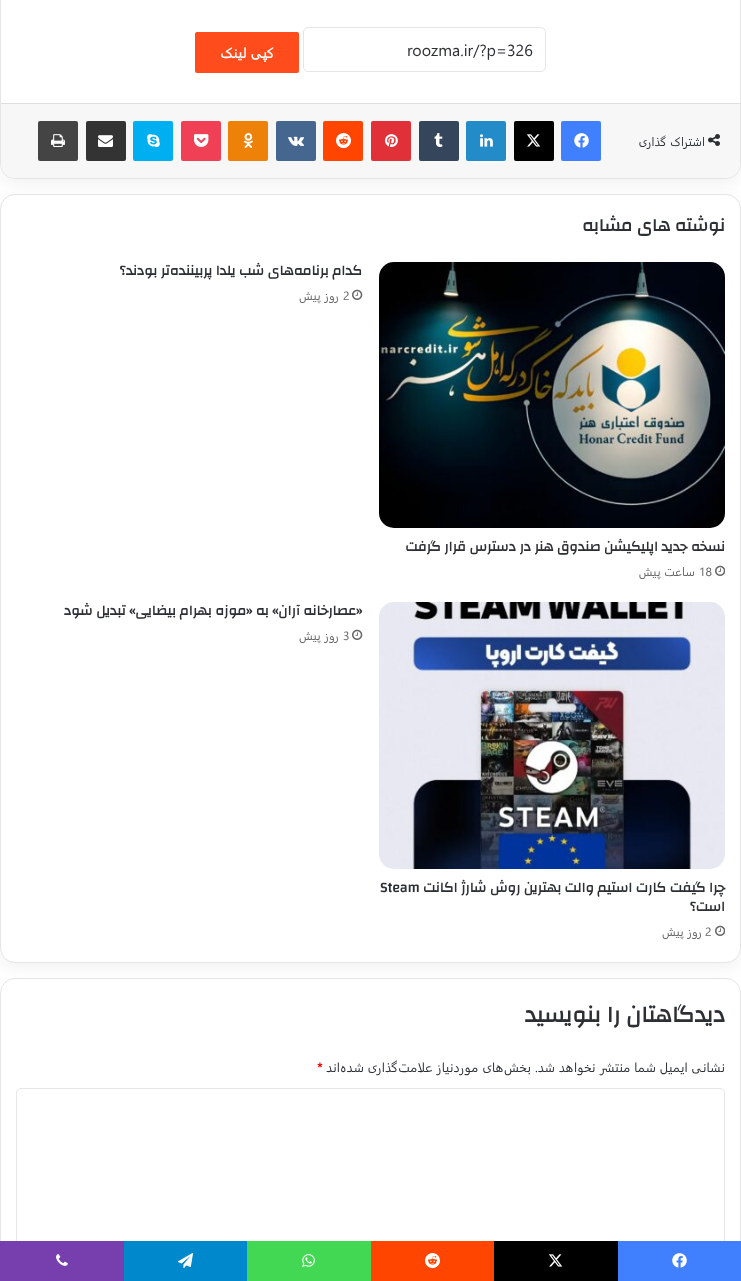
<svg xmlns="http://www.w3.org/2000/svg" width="741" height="1281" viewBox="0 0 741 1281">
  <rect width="100%" height="100%" fill="rgb(255,255,255)"/>
  <rect x="0" y="-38" width="741" height="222" rx="15" fill="rgba(0,0,0,0.05)" filter="blur(7.5px)"/>
  <rect x="0.5" y="-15.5" width="740" height="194" rx="14.5" fill="rgb(255,255,255)" stroke="rgb(229,229,229)"/>
  <rect x="303.5" y="27.5" width="242" height="44" rx="4.5" fill="none" stroke="rgb(230,230,230)"/>
  <text x="407" y="56" font-family="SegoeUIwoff" font-size="16" fill="rgb(44,47,52)">roozma.ir/?p=326</text>
  <rect x="195" y="32" width="104" height="41" rx="2" fill="rgb(254,76,28)"/>
  <text x="274" y="58" font-family="SegoeUIwoff" font-size="14" font-weight="bold" direction="rtl" fill="rgb(255,255,255)">کپی لینک</text>
  <path d="M1 103H740V163C740 171.5 733.5 178 725 178H16C7.5 178 1 171.5 1 163Z" fill="rgb(247,247,247)"/>
  <rect x="1" y="103" width="739" height="1" fill="rgb(222,222,222)"/>
  <image x="708" y="134" width="12" height="12" href="pic1.png"/>
  <text x="705" y="146" font-family="SegoeUIwoff" font-size="12" direction="rtl" fill="rgb(44,47,52)">اشتراک گذاری</text>
  <rect x="561" y="121" width="40" height="40" rx="2" fill="rgb(64,128,255)"/>
  <image x="574" y="133" width="15" height="15" href="pic2.png"/>
  <rect x="514" y="121" width="40" height="40" rx="2" fill="rgb(0,0,0)"/>
  <image x="526" y="134" width="15" height="13" href="pic3.png"/>
  <rect x="466" y="121" width="40" height="40" rx="2" fill="rgb(35,140,200)"/>
  <image x="480" y="134" width="13" height="13" href="pic4.png"/>
  <rect x="419" y="121" width="40" height="40" rx="2" fill="rgb(53,70,92)"/>
  <image x="434" y="133" width="9" height="14" href="pic5.png"/>
  <rect x="371" y="121" width="40" height="40" rx="2" fill="rgb(225,49,56)"/>
  <image x="385" y="134" width="13" height="13" href="pic6.png"/>
  <rect x="323" y="121" width="40" height="40" rx="2" fill="rgb(255,69,0)"/>
  <image x="336" y="133" width="15" height="16" href="pic7.png"/>
  <rect x="276" y="121" width="40" height="40" rx="2" fill="rgb(69,102,142)"/>
  <image x="288" y="136" width="16" height="10" href="pic8.png"/>
  <rect x="228" y="121" width="40" height="40" rx="2" fill="rgb(238,130,8)"/>
  <image x="243" y="133" width="10" height="15" href="pic9.png"/>
  <rect x="181" y="121" width="40" height="40" rx="2" fill="rgb(239,64,86)"/>
  <image x="194" y="134" width="15" height="13" href="pic10.png"/>
  <rect x="133" y="121" width="40" height="40" rx="2" fill="rgb(0,175,240)"/>
  <image x="147" y="134" width="13" height="13" href="pic11.png"/>
  <rect x="86" y="121" width="40" height="40" rx="2" fill="rgb(51,51,51)"/>
  <image x="98" y="135" width="15" height="12" href="pic12.png"/>
  <rect x="38" y="121" width="40" height="40" rx="2" fill="rgb(68,68,68)"/>
  <image x="51" y="134" width="14" height="13" href="pic13.png"/>
  <rect x="0" y="199" width="741" height="769" rx="15" fill="rgba(0,0,0,0.05)" filter="blur(7.5px)"/>
  <rect x="0.5" y="194.5" width="740" height="768" rx="14.5" fill="rgb(255,255,255)" stroke="rgb(229,229,229)"/>
  <text x="725" y="231" font-family="Changa" font-size="18" font-weight="bold" direction="rtl" fill="rgb(44,47,52)">نوشته های مشابه</text>
  <text x="362" y="275" font-family="Changa" font-size="14" font-weight="bold" direction="rtl" fill="rgb(44,47,52)">کدام برنامه‌های شب یلدا پربیننده‌تر بودند؟</text>
  <image x="352" y="289" width="11" height="11" href="pic14.png"/>
  <text x="343" y="300" font-family="SegoeUIwoff" font-size="12" fill="rgb(102,102,102)">2</text>
  <text x="339" y="300" font-family="SegoeUIwoff" font-size="12" direction="rtl" fill="rgb(102,102,102)">روز پیش</text>
  <image x="379" y="262" width="346" height="266" href="pic15.png"/>
  <text x="725" y="551" font-family="Changa" font-size="14" font-weight="bold" direction="rtl" fill="rgb(44,47,52)">نسخه جدید اپلیکیشن صندوق هنر در دسترس قرار گرفت</text>
  <image x="715" y="565" width="10" height="11" href="pic16.png"/>
  <text x="699" y="576" font-family="SegoeUIwoff" font-size="12" fill="rgb(102,102,102)">18</text>
  <text x="695" y="576" font-family="SegoeUIwoff" font-size="12" direction="rtl" fill="rgb(102,102,102)">ساعت پیش</text>
  <text x="362" y="615" font-family="Changa" font-size="14" font-weight="bold" direction="rtl" fill="rgb(44,47,52)">«عصارخانه آران» به «موزه بهرام بیضایی» تبدیل شود</text>
  <image x="352" y="629" width="11" height="11" href="pic14.png"/>
  <text x="343" y="640" font-family="SegoeUIwoff" font-size="12" fill="rgb(102,102,102)">3</text>
  <text x="339" y="640" font-family="SegoeUIwoff" font-size="12" direction="rtl" fill="rgb(102,102,102)">روز پیش</text>
  <image x="379" y="602" width="346" height="267" href="pic17.png"/>
  <text x="725" y="892" font-family="Changa" font-size="14" font-weight="bold" direction="rtl" fill="rgb(44,47,52)">چرا گیفت کارت استیم والت بهترین روش شارژ اکانت</text>
  <text x="380" y="892" font-family="Changa" font-size="14" font-weight="bold" fill="rgb(44,47,52)">Steam</text>
  <text x="725" y="911" font-family="Changa" font-size="14" font-weight="bold" direction="rtl" fill="rgb(44,47,52)">است؟</text>
  <image x="715" y="925" width="10" height="11" href="pic16.png"/>
  <text x="705" y="936" font-family="SegoeUIwoff" font-size="12" fill="rgb(102,102,102)">2</text>
  <text x="702" y="936" font-family="SegoeUIwoff" font-size="12" direction="rtl" fill="rgb(102,102,102)">روز پیش</text>
  <rect x="0.5" y="978.5" width="740" height="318" rx="14.5" fill="none" stroke="rgb(229,229,229)"/>
  <text x="725" y="1022" font-family="Changa" font-size="23" font-weight="bold" direction="rtl" fill="rgb(44,47,52)">دیدگاهتان را بنویسید</text>
  <g font-family="SegoeUIwoff" font-size="13" direction="rtl" fill="rgb(44,47,52)">
    <text x="725" y="1072">نشانی ایمیل شما منتشر نخواهد شد.</text>
    <text x="531" y="1072">بخش‌های موردنیاز علامت‌گذاری شده‌اند</text>
  </g>
  <text x="317" y="1072" font-family="SegoeUIwoff" font-size="13" font-weight="bold" fill="rgb(255,0,0)">*</text>
  <rect x="16.5" y="1088.5" width="708" height="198" rx="4.5" fill="none" stroke="rgb(230,230,230)"/>
  <rect x="618" y="1241" width="123" height="40" fill="rgb(64,128,255)"/>
  <image x="672" y="1253" width="15" height="15" href="pic2.png"/>
  <rect x="494" y="1241" width="124" height="40" fill="rgb(0,0,0)"/>
  <image x="548" y="1254" width="15" height="13" href="pic3.png"/>
  <rect x="371" y="1241" width="123" height="40" fill="rgb(255,69,0)"/>
  <image x="425" y="1253" width="15" height="16" href="pic7.png"/>
  <rect x="247" y="1241" width="124" height="40" fill="rgb(67,216,84)"/>
  <image x="302" y="1254" width="13" height="13" href="pic18.png"/>
  <rect x="124" y="1241" width="123" height="40" fill="rgb(0,136,204)"/>
  <image x="178" y="1253" width="15" height="15" href="pic19.png"/>
  <rect x="0" y="1241" width="124" height="40" fill="rgb(119,62,173)"/>
  <image x="56" y="1254" width="12" height="12" href="pic20.png"/>
</svg>
